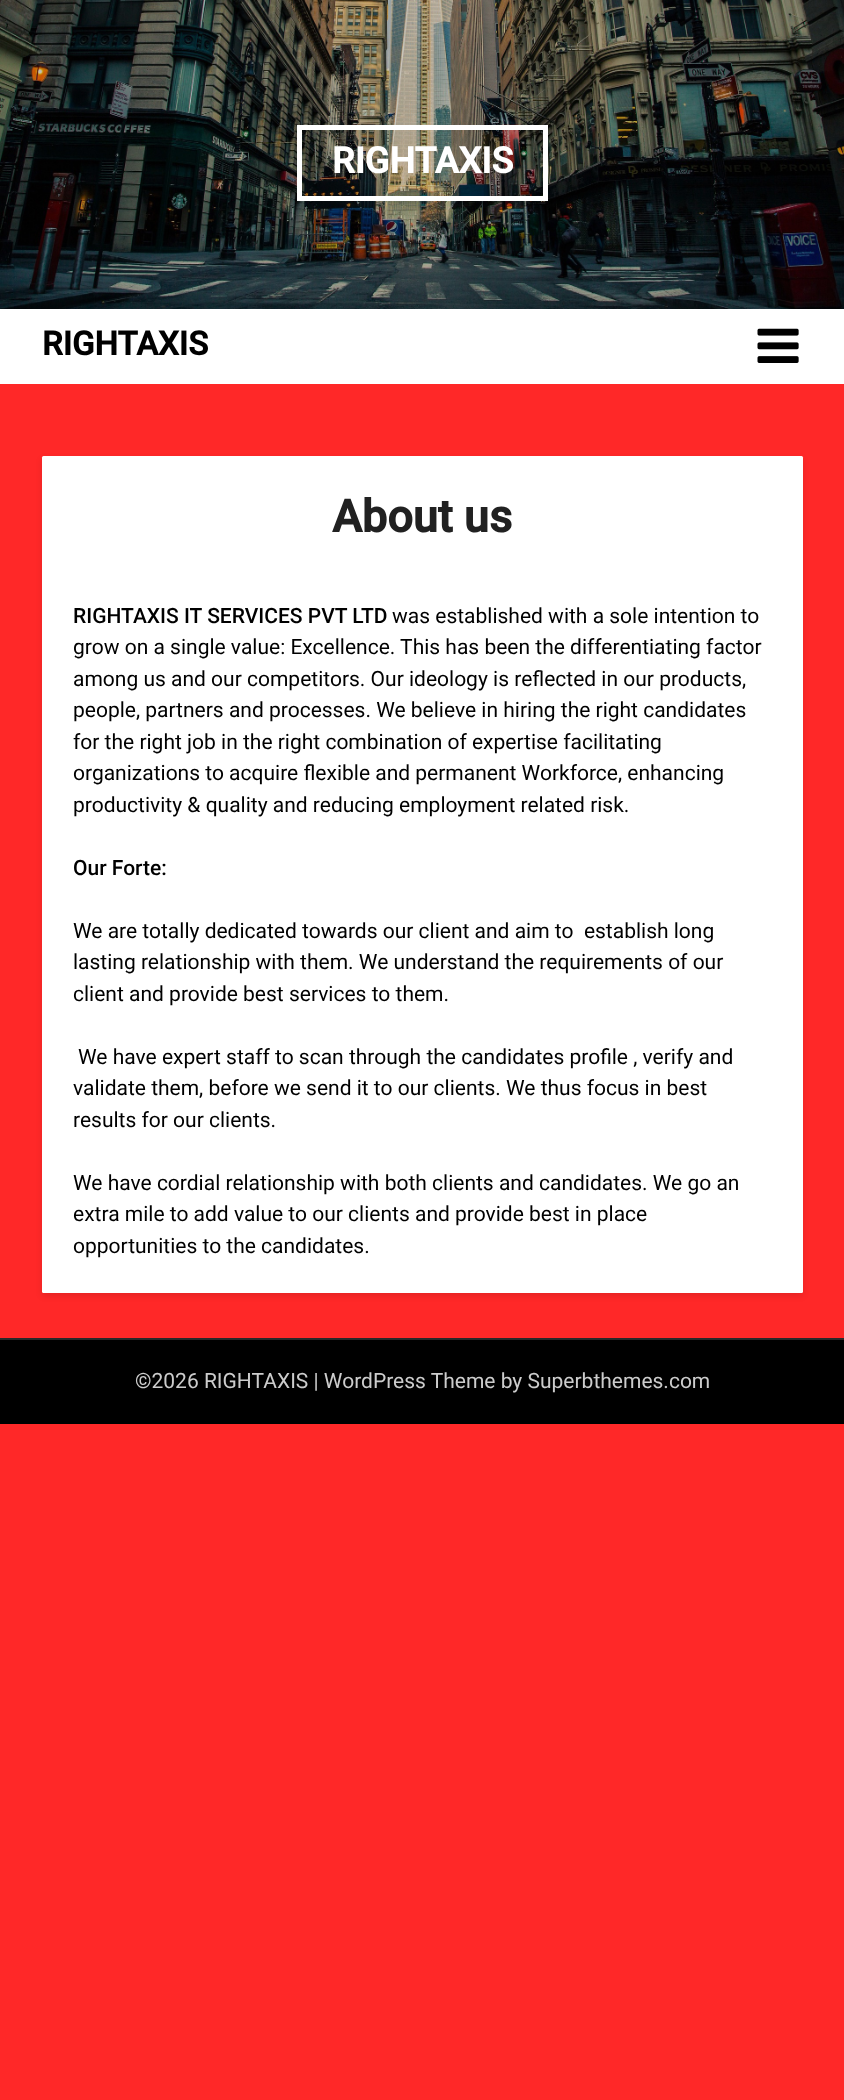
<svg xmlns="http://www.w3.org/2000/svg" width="844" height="2100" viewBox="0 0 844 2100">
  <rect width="100%" height="100%" fill="rgb(255,40,40)"/>
  <image x="0" y="0" width="844" height="309" href="pic1.png"/>
  <rect x="299.5" y="127.5" width="246" height="71" fill="none" stroke="rgb(255,255,255)" stroke-width="5"/>
  <text x="332" y="173" font-family="Roboto" font-size="36" font-weight="bold" fill="rgb(255,255,255)">RIGHTAXIS</text>
  <rect x="0" y="309" width="844" height="75" fill="rgb(255,255,255)"/>
  <text x="42" y="355" font-family="Roboto" font-size="33" font-weight="bold" fill="rgb(0,0,0)">RIGHTAXIS</text>
  <image x="757" y="328" width="42" height="35" href="pic2.png"/>
  <rect x="42" y="459" width="761" height="837" rx="1.5" fill="rgba(0,0,0,0.1)" filter="blur(3px)"/>
  <rect x="42" y="456" width="761" height="837" rx="1.5" fill="rgb(255,255,255)"/>
  <text x="332" y="532" font-family="Roboto" font-size="45" font-weight="bold" fill="rgb(33,33,33)">About us</text>
  <text x="73" y="623" font-family="Roboto" font-size="21" font-weight="500" fill="rgb(0,0,0)">RIGHTAXIS IT SERVICES PVT LTD</text>
  <g font-family="Roboto" font-size="21" fill="rgb(0,0,0)">
    <text x="392" y="623">was established with a sole intention to</text>
    <text>
      <tspan x="73" y="654">grow on a single value: Excellence. This has been the differentiating factor</tspan>
      <tspan x="73" y="686">among us and our competitors. Our ideology is reflected in our products,</tspan>
      <tspan x="73" y="717">people, partners and processes. We believe in hiring the right candidates</tspan>
      <tspan x="73" y="749">for the right job in the right combination of expertise facilitating</tspan>
      <tspan x="73" y="780">organizations to acquire flexible and permanent Workforce, enhancing</tspan>
      <tspan x="73" y="812">productivity &amp; quality and reducing employment related risk.</tspan>
    </text>
  </g>
  <text x="73" y="875" font-family="Roboto" font-size="21" font-weight="500" fill="rgb(0,0,0)">Our Forte:</text>
  <g font-family="Roboto" font-size="21" fill="rgb(0,0,0)">
    <text xml:space="preserve"><tspan x="73" y="938">We are totally dedicated towards our client and aim to  establish long</tspan><tspan x="73" y="969">lasting relationship with them. We understand the requirements of our</tspan><tspan x="73" y="1001">client and provide best services to them.</tspan></text>
    <text x="78" y="1064">We have expert staff to scan through the candidates profile , verify and</text>
    <text>
      <tspan x="73" y="1095">validate them, before we send it to our clients. We thus focus in best</tspan>
      <tspan x="73" y="1127">results for our clients.</tspan>
    </text>
    <text>
      <tspan x="73" y="1190">We have cordial relationship with both clients and candidates. We go an</tspan>
      <tspan x="73" y="1221">extra mile to add value to our clients and provide best in place</tspan>
      <tspan x="73" y="1253">opportunities to the candidates.</tspan>
    </text>
  </g>
  <rect x="0" y="1340" width="844" height="84" fill="rgb(0,0,0)"/>
  <rect x="0" y="1338" width="844" height="2" fill="rgb(41,41,41)"/>
  <text x="135" y="1388" font-family="Roboto" font-size="21" fill="rgb(204,204,204)">©2026 RIGHTAXIS | WordPress Theme by Superbthemes.com</text>
</svg>
